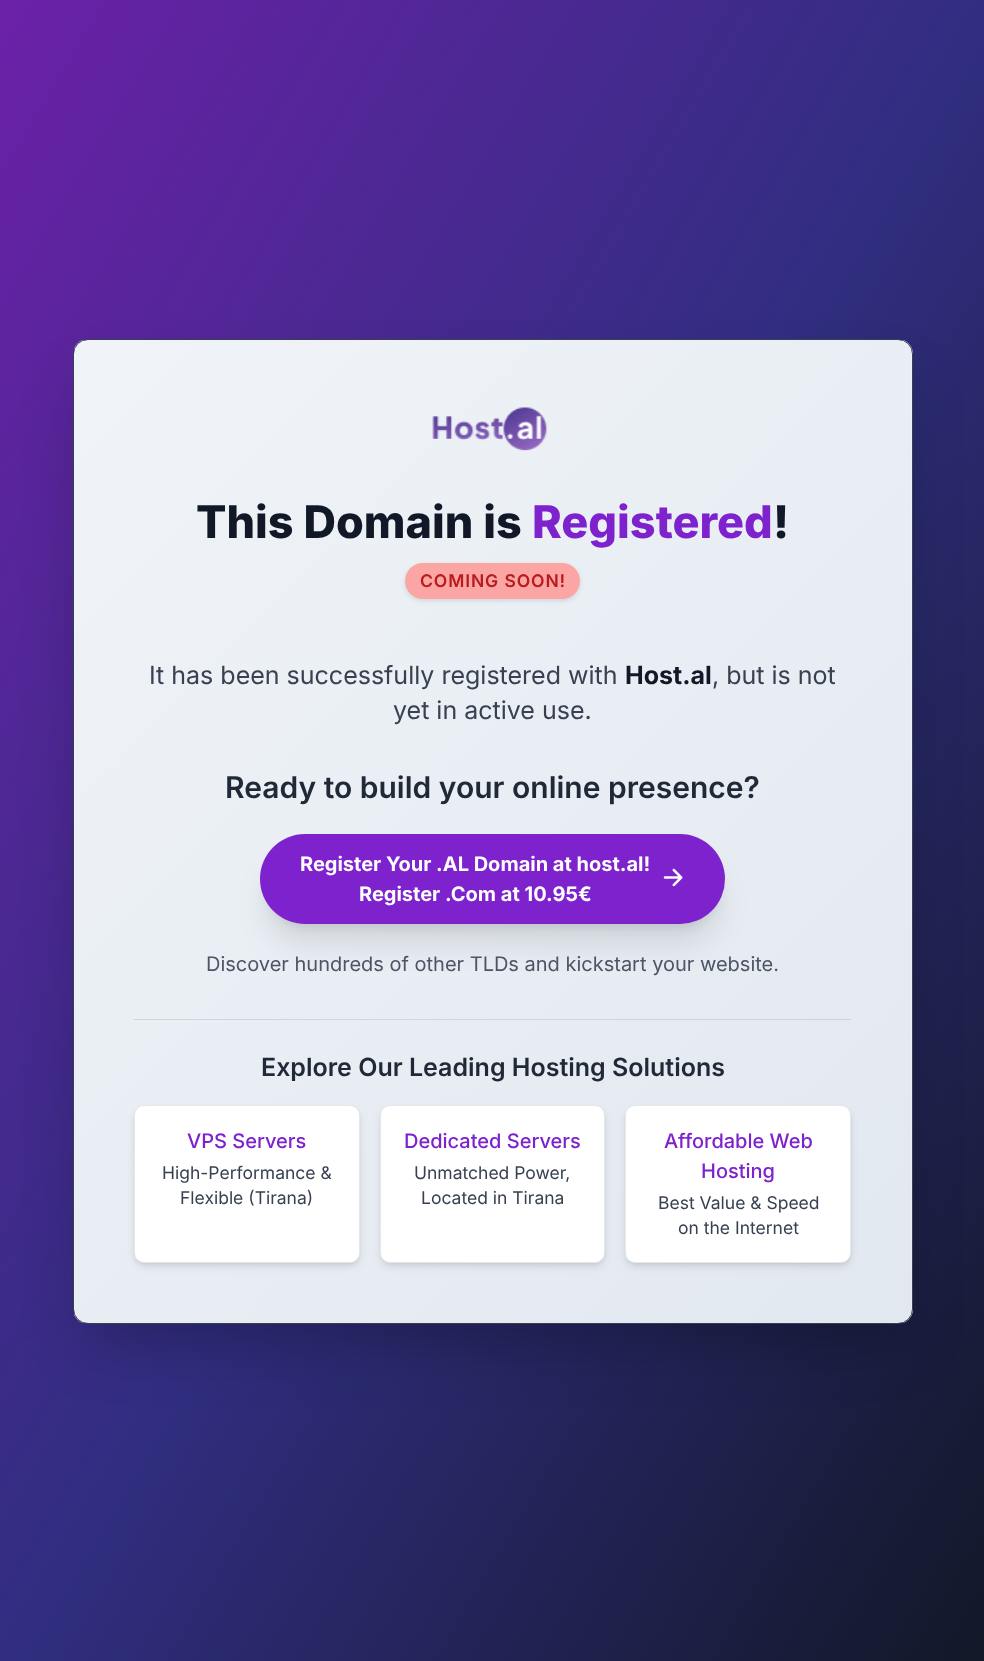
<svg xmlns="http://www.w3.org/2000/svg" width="984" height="1661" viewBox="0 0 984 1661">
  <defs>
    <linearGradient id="g1" gradientUnits="userSpaceOnUse" x1="-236" y1="399" x2="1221" y2="1263"><stop offset="0" stop-color="rgb(107,33,168)"/><stop offset="0.5" stop-color="rgb(49,46,129)"/><stop offset="1" stop-color="rgb(17,24,39)"/></linearGradient>
    <clipPath id="clip1"><rect x="73" y="339" width="840" height="985" rx="15"/></clipPath>
    <linearGradient id="g2" gradientUnits="userSpaceOnUse" x1="38" y1="376" x2="948" y2="1286"><stop offset="0" stop-color="rgb(240,244,248)"/><stop offset="1" stop-color="rgb(226,232,240)"/></linearGradient>
    <linearGradient id="g3" gradientUnits="userSpaceOnUse" x1="875" y1="376" x2="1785" y2="1286"><stop offset="0" stop-color="rgb(240,244,248)"/><stop offset="1" stop-color="rgb(226,232,240)"/></linearGradient>
  </defs>
  <rect width="100%" height="100%" fill="rgb(255,255,255)"/>
  <rect x="0" y="0" width="984" height="1661" fill="url(#g1)"/>
  <rect x="88" y="385" width="810" height="955" fill="rgba(0,0,0,0.25)" filter="blur(31px)"/>
  <g clip-path="url(#clip1)">
    <rect x="74" y="340" width="837" height="983" fill="url(#g2)"/>
    <rect x="911" y="340" width="2" height="983" fill="url(#g3)"/>
  </g>
  <rect x="73.5" y="339.5" width="839" height="984" rx="14.5" fill="none" stroke="rgb(55,65,81)"/>
  <image x="432" y="407" width="116" height="44" href="pic1.png"/>
  <text x="196" y="538" font-family="Inter" font-size="45" font-weight="800" fill="rgb(17,24,39)">This Domain is</text>
  <text x="532" y="538" font-family="Inter" font-size="45" font-weight="800" fill="rgb(126,34,206)">Registered</text>
  <text x="773" y="538" font-family="Inter" font-size="45" font-weight="800" fill="rgb(17,24,39)">!</text>
  <rect x="405" y="565" width="175" height="36" rx="18" fill="rgba(0,0,0,0.1)" filter="blur(2.5px)"/>
  <rect x="405" y="563" width="175" height="36" rx="18" fill="rgb(252,165,165)"/>
  <text x="420" y="587" font-family="Inter" font-size="17.5" font-weight="600" letter-spacing="0.9" fill="rgb(185,28,28)">COMING SOON!</text>
  <text x="149" y="684" font-family="Inter" font-size="25" fill="rgb(55,65,81)">It has been successfully registered with</text>
  <text x="625" y="684" font-family="Inter" font-size="25" font-weight="bold" fill="rgb(17,24,39)">Host.al</text>
  <g font-family="Inter" font-size="25" fill="rgb(55,65,81)">
    <text x="712" y="684">, but is not</text>
    <text x="393" y="719">yet in active use.</text>
  </g>
  <text x="225" y="798" font-family="Inter" font-size="30" font-weight="600" fill="rgb(31,41,55)">Ready to build your online presence?</text>
  <rect x="268" y="851" width="450" height="75" rx="37.5" fill="rgba(0,0,0,0.1)" filter="blur(6px)"/>
  <rect x="266" y="865" width="453" height="78" rx="39" fill="rgba(0,0,0,0.1)" filter="blur(15.5px)"/>
  <rect x="260" y="834" width="465" height="90" rx="45" fill="rgb(126,34,206)"/>
  <text x="300" y="871" font-family="Inter" font-size="20" font-weight="bold" fill="rgb(255,255,255)">Register Your .AL Domain at host.al!</text>
  <image x="663" y="868" width="20" height="19" href="pic2.png"/>
  <text x="359" y="901" font-family="Inter" font-size="20" font-weight="bold" fill="rgb(255,255,255)">Register .Com at 10.95€</text>
  <text x="206" y="971" font-family="Inter" font-size="20" fill="rgb(75,85,99)">Discover hundreds of other TLDs and kickstart your website.</text>
  <rect x="134" y="1019" width="717" height="1" fill="rgb(209,213,219)"/>
  <text x="261" y="1076" font-family="Inter" font-size="25" font-weight="600" fill="rgb(31,41,55)">Explore Our Leading Hosting Solutions</text>
  <rect x="136" y="1110" width="222" height="153" rx="8" fill="rgba(0,0,0,0.1)" filter="blur(2.5px)"/>
  <rect x="135" y="1111" width="224" height="155" rx="9" fill="rgba(0,0,0,0.1)" filter="blur(4px)"/>
  <rect x="134.5" y="1105.5" width="225" height="157" rx="9.5" fill="rgb(255,255,255)" stroke="rgb(229,231,235)"/>
  <text x="187" y="1148" font-family="Inter" font-size="20" font-weight="500" fill="rgb(126,34,206)">VPS Servers</text>
  <g font-family="Inter" font-size="17.5" fill="rgb(55,65,81)">
    <text x="162" y="1179">High-Performance &amp;</text>
    <text x="180" y="1204">Flexible (Tirana)</text>
  </g>
  <rect x="383" y="1110" width="220" height="153" rx="8" fill="rgba(0,0,0,0.1)" filter="blur(2.5px)"/>
  <rect x="381" y="1111" width="223" height="155" rx="9" fill="rgba(0,0,0,0.1)" filter="blur(4px)"/>
  <rect x="380.5" y="1105.5" width="224" height="157" rx="9.5" fill="rgb(255,255,255)" stroke="rgb(229,231,235)"/>
  <text x="404" y="1148" font-family="Inter" font-size="20" font-weight="500" fill="rgb(126,34,206)">Dedicated Servers</text>
  <g font-family="Inter" font-size="17.5" fill="rgb(55,65,81)">
    <text x="414" y="1179">Unmatched Power,</text>
    <text x="421" y="1204">Located in Tirana</text>
  </g>
  <rect x="628" y="1110" width="221" height="153" rx="8" fill="rgba(0,0,0,0.1)" filter="blur(2.5px)"/>
  <rect x="626" y="1111" width="224" height="155" rx="9" fill="rgba(0,0,0,0.1)" filter="blur(4px)"/>
  <rect x="625.5" y="1105.5" width="225" height="157" rx="9.5" fill="rgb(255,255,255)" stroke="rgb(229,231,235)"/>
  <g font-family="Inter" font-size="20" font-weight="500" fill="rgb(126,34,206)">
    <text x="664" y="1148">Affordable Web</text>
    <text x="701" y="1178">Hosting</text>
  </g>
  <g font-family="Inter" font-size="17.5" fill="rgb(55,65,81)">
    <text x="658" y="1209">Best Value &amp; Speed</text>
    <text x="678" y="1234">on the Internet</text>
  </g>
</svg>
